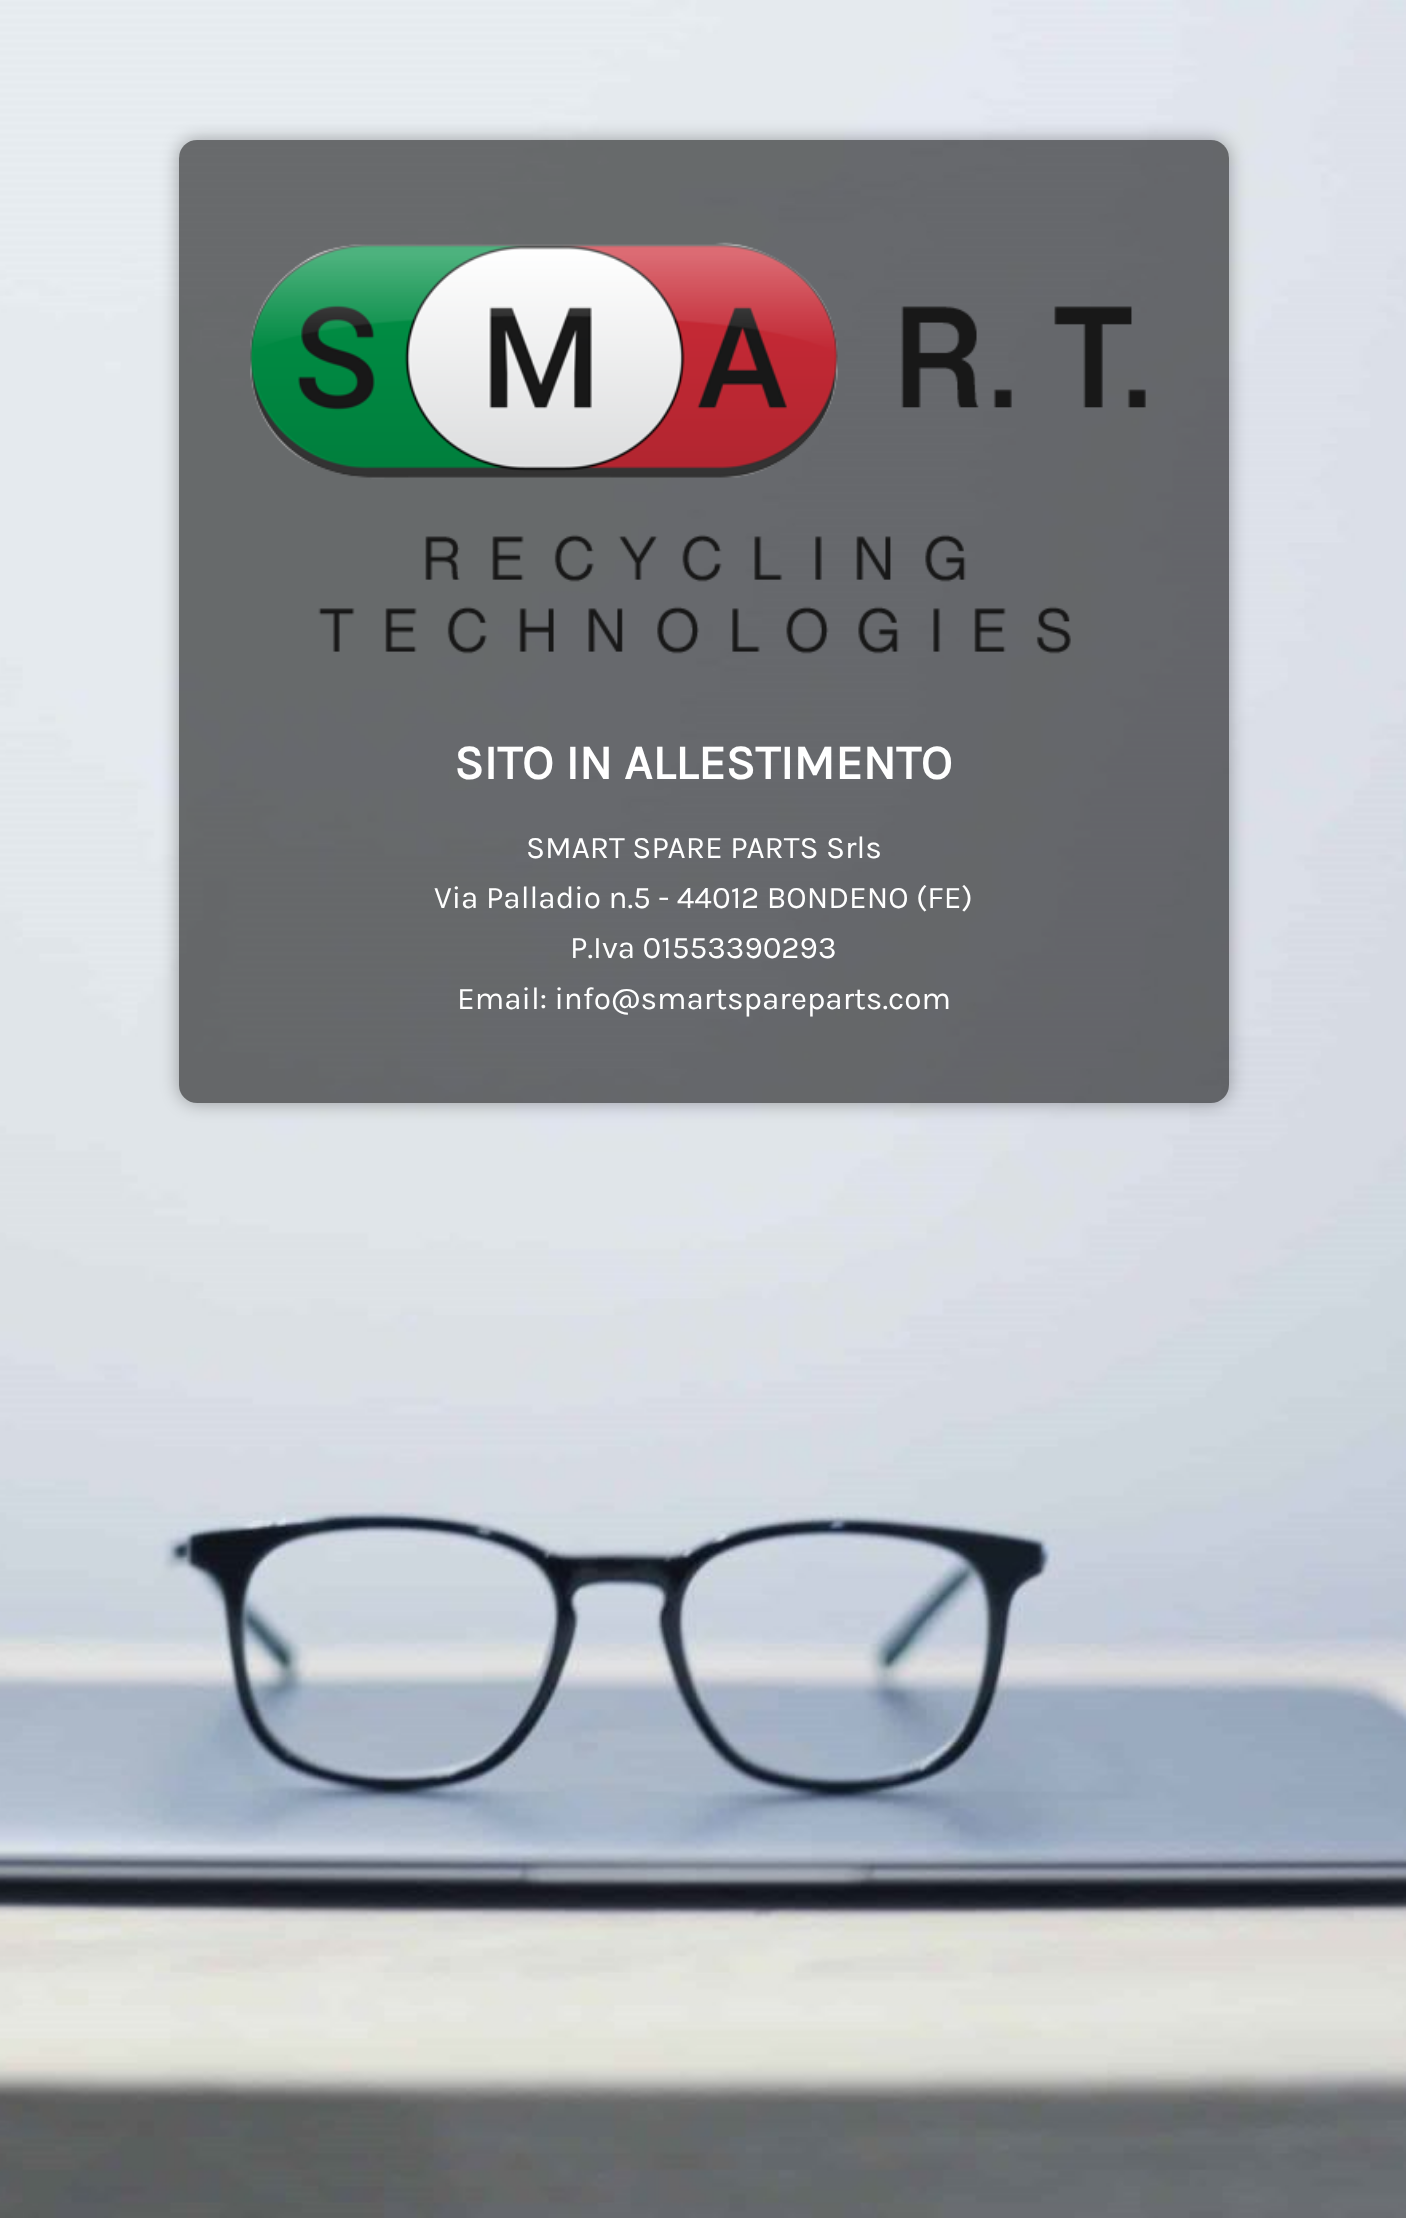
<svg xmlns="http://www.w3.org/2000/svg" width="1406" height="2218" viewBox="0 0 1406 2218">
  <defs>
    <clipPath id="clip1"><path d="M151 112H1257V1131H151ZM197 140H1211C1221 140 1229 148 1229 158V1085C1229 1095 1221 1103 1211 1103H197C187 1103 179 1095 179 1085V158C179 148 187 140 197 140Z" clip-rule="evenodd"/></clipPath>
  </defs>
  <rect width="100%" height="100%" fill="rgb(255,255,255)"/>
  <image x="0" y="0" width="1406" height="2218" href="pic1.png"/>
  <g clip-path="url(#clip1)">
    <rect x="179" y="140" width="1050" height="963" rx="18" fill="rgba(0,0,0,0.33)" filter="blur(9px)"/>
  </g>
  <rect x="179" y="140" width="1050" height="963" rx="18" fill="rgba(0,0,0,0.55)"/>
  <image x="250" y="242" width="896" height="412" href="pic2.png"/>
  <text x="454" y="779" font-family="Karla" font-size="49" font-weight="bold" fill="rgb(255,255,255)">SITO IN ALLESTIMENTO</text>
  <g font-family="Karla" font-size="31.5" fill="rgb(255,255,255)">
    <text x="526" y="858">SMART SPARE PARTS Srls</text>
    <text x="434" y="908">Via Palladio n.5 - 44012 BONDENO (FE)</text>
    <text x="570" y="958">P.Iva 01553390293</text>
    <text x="457" y="1009">Email: info@smartspareparts.com</text>
  </g>
</svg>
